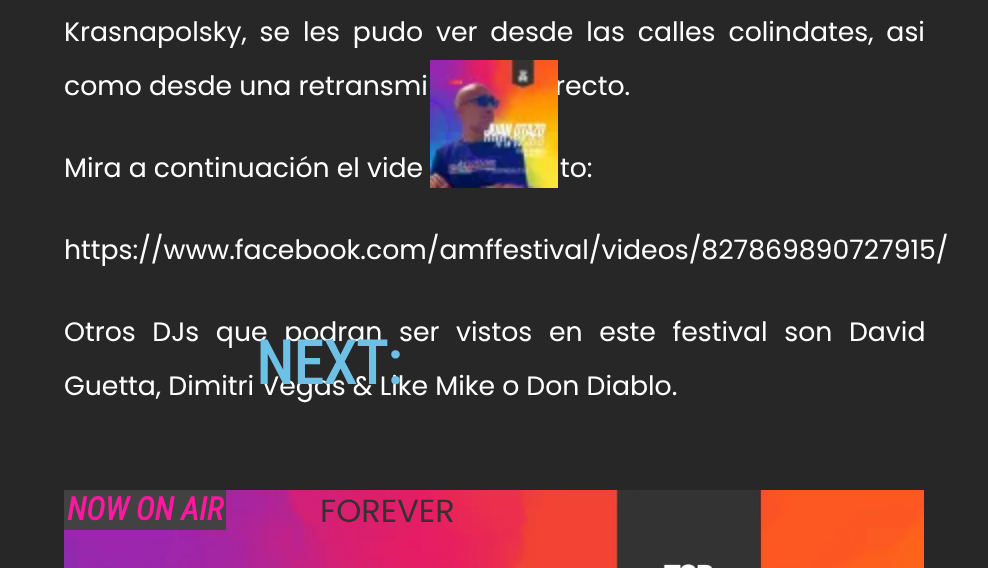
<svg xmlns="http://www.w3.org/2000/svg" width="988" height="568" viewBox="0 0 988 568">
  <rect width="100%" height="100%" fill="rgb(39,39,39)"/>
  <g font-family="Poppins" font-size="26.7" fill="rgb(255,255,255)">
    <text x="64" y="41" word-spacing="5.75">Krasnapolsky, se les pudo ver desde las calles colindates, asi</text>
    <text x="64" y="95">como desde una retransmi</text>
    <text x="555" y="95">recto.</text>
    <text x="64" y="177">Mira a continuación el vide</text>
    <text x="560" y="177">to:</text>
    <text x="64" y="259">https://www.facebook.com/amffestival/videos/827869890727915/</text>
    <text x="64" y="341" word-spacing="9.5">Otros DJs que podran ser vistos en este festival son David</text>
    <text x="64" y="395">Guetta, Dimitri Vegas &amp; Like Mike o Don Diablo.</text>
  </g>
  <image x="64" y="490" width="860" height="78" href="pic1.png"/>
  <rect x="64" y="490" width="162" height="40" fill="rgb(66,66,66)"/>
  <text x="67" y="520" font-family="Roboto Condensed" font-size="32" font-weight="bold" font-style="italic" fill="rgb(255,23,159)">NOW ON AIR</text>
  <image x="430" y="60" width="128" height="128" href="pic2.png"/>
  <text x="256" y="384" font-family="Roboto Condensed" font-size="60" font-weight="bold" fill="rgb(110,193,228)">NEXT:</text>
  <text x="320" y="522" font-family="Poppins" font-size="32" fill="rgb(51,51,51)">FOREVER</text>
</svg>
